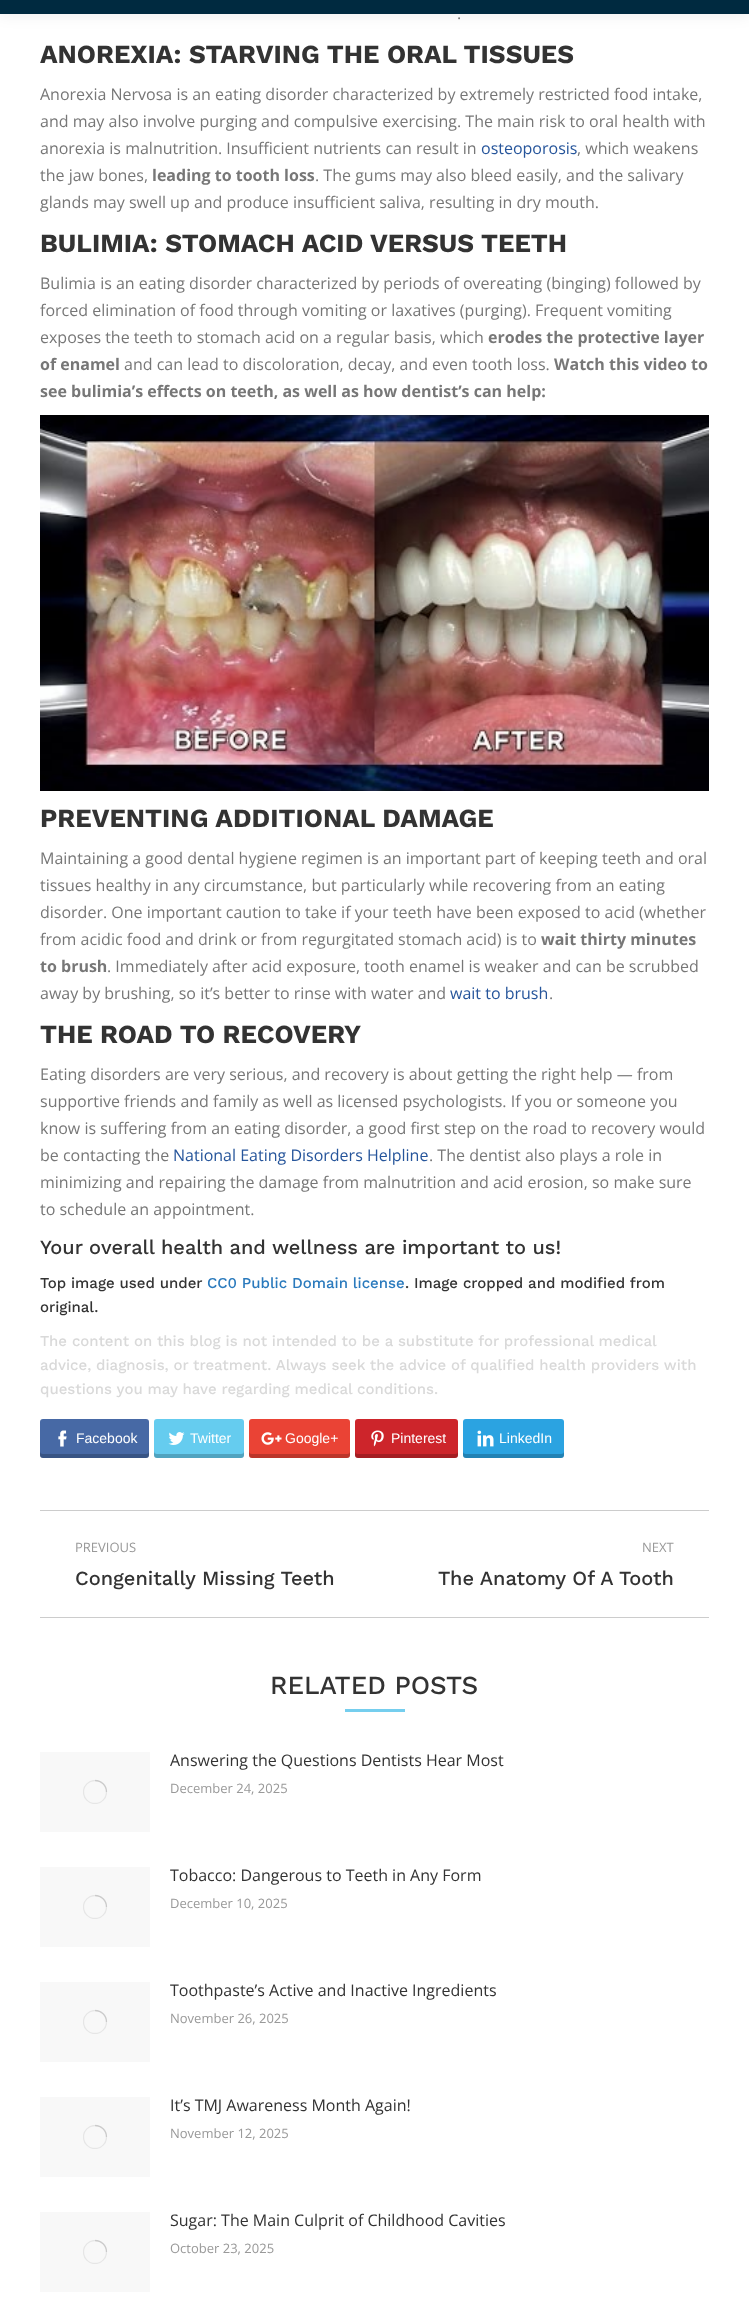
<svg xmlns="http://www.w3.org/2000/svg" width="749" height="2320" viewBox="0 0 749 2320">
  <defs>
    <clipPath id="clip1"><rect x="83" y="1780" width="24" height="24"/></clipPath>
    <clipPath id="clip2"><rect x="83" y="1895" width="24" height="24"/></clipPath>
    <clipPath id="clip3"><rect x="83" y="2010" width="24" height="24"/></clipPath>
    <clipPath id="clip4"><rect x="83" y="2125" width="24" height="24"/></clipPath>
    <clipPath id="clip5"><rect x="83" y="2240" width="24" height="24"/></clipPath>
  </defs>
  <rect width="100%" height="100%" fill="rgb(255,255,255)"/>
  <rect x="-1" y="-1" width="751" height="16" fill="rgba(0,0,0,0.07)" filter="blur(7.5px)"/>
  <rect x="0" y="0" width="749" height="14" fill="rgb(0,42,64)"/>
  <text x="457" y="19" font-family="Open Sans" font-size="16" fill="rgb(119,119,119)">.</text>
  <text x="40" y="63" font-family="Work Sans" font-size="26" font-weight="bold" fill="rgb(51,51,51)">ANOREXIA: STARVING THE ORAL TISSUES</text>
  <g font-family="Open Sans" font-size="16" fill="rgb(119,119,119)">
    <text>
      <tspan x="40" y="100">Anorexia Nervosa is an eating disorder characterized by extremely restricted food intake,</tspan>
      <tspan x="40" y="127">and may also involve purging and compulsive exercising. The main risk to oral health with</tspan>
      <tspan x="40" y="154">anorexia is malnutrition. Insufficient nutrients can result in</tspan>
    </text>
  </g>
  <text x="481" y="154" font-family="Open Sans" font-size="16" fill="rgb(38,85,155)">osteoporosis</text>
  <g font-family="Open Sans" font-size="16" fill="rgb(119,119,119)">
    <text x="577" y="154">, which weakens</text>
    <text x="40" y="181">the jaw bones,</text>
  </g>
  <text x="152" y="181" font-family="Open Sans" font-size="16" font-weight="bold" fill="rgb(119,119,119)">leading to tooth loss</text>
  <g font-family="Open Sans" font-size="16" fill="rgb(119,119,119)">
    <text x="315" y="181">. The gums may also bleed easily, and the salivary</text>
    <text x="40" y="208">glands may swell up and produce insufficient saliva, resulting in dry mouth.</text>
  </g>
  <text x="40" y="252" font-family="Work Sans" font-size="26" font-weight="bold" fill="rgb(51,51,51)">BULIMIA: STOMACH ACID VERSUS TEETH</text>
  <g font-family="Open Sans" font-size="16" fill="rgb(119,119,119)">
    <text>
      <tspan x="40" y="289">Bulimia is an eating disorder characterized by periods of overeating (binging) followed by</tspan>
      <tspan x="40" y="316">forced elimination of food through vomiting or laxatives (purging). Frequent vomiting</tspan>
      <tspan x="40" y="343">exposes the teeth to stomach acid on a regular basis, which</tspan>
    </text>
  </g>
  <g font-family="Open Sans" font-size="16" font-weight="bold" fill="rgb(119,119,119)">
    <text x="488" y="343">erodes the protective layer</text>
    <text x="40" y="370">of enamel</text>
  </g>
  <text x="124" y="370" font-family="Open Sans" font-size="16" fill="rgb(119,119,119)">and can lead to discoloration, decay, and even tooth loss.</text>
  <g font-family="Open Sans" font-size="16" font-weight="bold" fill="rgb(119,119,119)">
    <text x="554" y="370">Watch this video to</text>
    <text x="40" y="397">see bulimia’s effects on teeth, as well as how dentist’s can help:</text>
  </g>
  <image x="40" y="415" width="669" height="376" href="pic1.png"/>
  <text x="40" y="827" font-family="Work Sans" font-size="26" font-weight="bold" fill="rgb(51,51,51)">PREVENTING ADDITIONAL DAMAGE</text>
  <g font-family="Open Sans" font-size="16" fill="rgb(119,119,119)">
    <text>
      <tspan x="40" y="864">Maintaining a good dental hygiene regimen is an important part of keeping teeth and oral</tspan>
      <tspan x="40" y="891">tissues healthy in any circumstance, but particularly while recovering from an eating</tspan>
      <tspan x="40" y="918">disorder. One important caution to take if your teeth have been exposed to acid (whether</tspan>
      <tspan x="40" y="945">from acidic food and drink or from regurgitated stomach acid) is to</tspan>
    </text>
  </g>
  <g font-family="Open Sans" font-size="16" font-weight="bold" fill="rgb(119,119,119)">
    <text x="541" y="945">wait thirty minutes</text>
    <text x="40" y="972">to brush</text>
  </g>
  <g font-family="Open Sans" font-size="16" fill="rgb(119,119,119)">
    <text x="107" y="972">. Immediately after acid exposure, tooth enamel is weaker and can be scrubbed</text>
    <text x="40" y="999">away by brushing, so it’s better to rinse with water and</text>
  </g>
  <text x="450" y="999" font-family="Open Sans" font-size="16" fill="rgb(38,85,155)">wait to brush</text>
  <text x="549" y="999" font-family="Open Sans" font-size="16" fill="rgb(119,119,119)">.</text>
  <text x="40" y="1043" font-family="Work Sans" font-size="26" font-weight="bold" fill="rgb(51,51,51)">THE ROAD TO RECOVERY</text>
  <g font-family="Open Sans" font-size="16" fill="rgb(119,119,119)">
    <text>
      <tspan x="40" y="1080">Eating disorders are very serious, and recovery is about getting the right help — from</tspan>
      <tspan x="40" y="1107">supportive friends and family as well as licensed psychologists. If you or someone you</tspan>
      <tspan x="40" y="1134">know is suffering from an eating disorder, a good first step on the road to recovery would</tspan>
      <tspan x="40" y="1161">be contacting the</tspan>
    </text>
  </g>
  <text x="173" y="1161" font-family="Open Sans" font-size="16" fill="rgb(38,85,155)">National Eating Disorders Helpline</text>
  <g font-family="Open Sans" font-size="16" fill="rgb(119,119,119)">
    <text x="429" y="1161">. The dentist also plays a role in</text>
    <text>
      <tspan x="40" y="1188">minimizing and repairing the damage from malnutrition and acid erosion, so make sure</tspan>
      <tspan x="40" y="1215">to schedule an appointment.</tspan>
    </text>
  </g>
  <text x="40" y="1254" font-family="Work Sans" font-size="20" font-weight="500" fill="rgb(51,51,51)">Your overall health and wellness are important to us!</text>
  <text x="40" y="1288" font-family="Work Sans" font-size="15" font-weight="500" fill="rgb(51,51,51)">Top image used under</text>
  <text x="207" y="1288" font-family="Work Sans" font-size="15" font-weight="500" fill="rgb(42,122,189)">CC0 Public Domain license</text>
  <g font-family="Work Sans" font-size="15" font-weight="500" fill="rgb(51,51,51)">
    <text x="405" y="1288">. Image cropped and modified from</text>
    <text x="40" y="1312">original.</text>
  </g>
  <g font-family="Work Sans" font-size="15" font-weight="500" fill="rgb(217,217,217)">
    <text>
      <tspan x="40" y="1346">The content on this blog is not intended to be a substitute for professional medical</tspan>
      <tspan x="40" y="1370">advice, diagnosis, or treatment. Always seek the advice of qualified health providers with</tspan>
      <tspan x="40" y="1394">questions you may have regarding medical conditions.</tspan>
    </text>
  </g>
  <rect x="40" y="1419" width="109" height="39" rx="3" fill="rgb(71,105,165)"/>
  <path d="M40 1451V1455C40 1457 41 1458 43 1458H146C148 1458 149 1457 149 1455V1451C149 1453 148 1454 146 1454H43C41 1454 40 1453 40 1451Z" fill="rgba(0,0,0,0.2)"/>
  <image x="58" y="1430" width="9" height="17" href="pic2.png"/>
  <text x="76" y="1443" font-family="Liberation Sans" font-size="14" fill="rgb(255,255,255)">Facebook</text>
  <rect x="154" y="1419" width="90" height="39" rx="3" fill="rgb(101,204,239)"/>
  <path d="M154 1451V1455C154 1457 155 1458 157 1458H241C243 1458 244 1457 244 1455V1451C244 1453 243 1454 241 1454H157C155 1454 154 1453 154 1451Z" fill="rgba(0,0,0,0.2)"/>
  <image x="168" y="1432" width="17" height="13" href="pic3.png"/>
  <text x="190" y="1443" font-family="Liberation Sans" font-size="14" fill="rgb(255,255,255)">Twitter</text>
  <rect x="249" y="1419" width="101" height="39" rx="3" fill="rgb(234,67,53)"/>
  <path d="M249 1451V1455C249 1457 250 1458 252 1458H347C349 1458 350 1457 350 1455V1451C350 1453 349 1454 347 1454H252C250 1454 249 1453 249 1451Z" fill="rgba(0,0,0,0.2)"/>
  <image x="261" y="1432" width="21" height="13" href="pic4.png"/>
  <text x="285" y="1443" font-family="Liberation Sans" font-size="14" fill="rgb(255,255,255)">Google+</text>
  <rect x="355" y="1419" width="103" height="39" rx="3" fill="rgb(205,37,43)"/>
  <path d="M355 1451V1455C355 1457 356 1458 358 1458H455C457 1458 458 1457 458 1455V1451C458 1453 457 1454 455 1454H358C356 1454 355 1453 355 1451Z" fill="rgba(0,0,0,0.2)"/>
  <image x="371" y="1430" width="13" height="17" href="pic5.png"/>
  <text x="391" y="1443" font-family="Liberation Sans" font-size="14" fill="rgb(255,255,255)">Pinterest</text>
  <rect x="463" y="1419" width="101" height="39" rx="3" fill="rgb(43,163,225)"/>
  <path d="M463 1451V1455C463 1457 464 1458 466 1458H561C563 1458 564 1457 564 1455V1451C564 1453 563 1454 561 1454H466C464 1454 463 1453 463 1451Z" fill="rgba(0,0,0,0.2)"/>
  <image x="477" y="1430" width="17" height="17" href="pic6.png"/>
  <text x="499" y="1443" font-family="Liberation Sans" font-size="14" fill="rgb(255,255,255)">LinkedIn</text>
  <rect x="40" y="1510" width="669" height="1" fill="rgb(204,204,204)"/>
  <rect x="40" y="1617" width="669" height="1" fill="rgb(204,204,204)"/>
  <text x="75" y="1552" font-family="Open Sans" font-size="13" fill="rgb(153,153,153)">PREVIOUS</text>
  <text x="75" y="1585" font-family="Work Sans" font-size="20" font-weight="500" fill="rgb(51,51,51)">Congenitally Missing Teeth</text>
  <text x="642" y="1552" font-family="Open Sans" font-size="13" fill="rgb(153,153,153)">NEXT</text>
  <text x="438" y="1585" font-family="Work Sans" font-size="20" font-weight="500" fill="rgb(51,51,51)">The Anatomy Of A Tooth</text>
  <text x="270" y="1694" font-family="Work Sans" font-size="26" font-weight="500" fill="rgb(51,51,51)">RELATED POSTS</text>
  <rect x="345" y="1709" width="60" height="3" fill="rgb(117,206,238)"/>
  <rect x="40" y="1752" width="110" height="80" fill="rgb(248,248,248)"/>
  <g clip-path="url(#clip1)">
    <circle cx="95" cy="1792" r="11.5" fill="none" stroke="rgb(230,230,230)" stroke-width="1.3"/>
  </g>
  <path d="M106.5 1792C106.5 1785.5 101.5 1780.5 95 1780.5" fill="none" stroke="rgba(119,119,119,0.25)" stroke-width="1.3"/>
  <text x="170" y="1766" font-family="Open Sans" font-size="16" fill="rgb(51,51,51)">Answering the Questions Dentists Hear Most</text>
  <text x="170" y="1793" font-family="Open Sans" font-size="13" fill="rgb(153,153,153)">December 24, 2025</text>
  <rect x="40" y="1867" width="110" height="80" fill="rgb(248,248,248)"/>
  <g clip-path="url(#clip2)">
    <circle cx="95" cy="1907" r="11.5" fill="none" stroke="rgb(230,230,230)" stroke-width="1.3"/>
  </g>
  <path d="M106.5 1907C106.5 1900.5 101.5 1895.5 95 1895.5" fill="none" stroke="rgba(119,119,119,0.25)" stroke-width="1.3"/>
  <text x="170" y="1881" font-family="Open Sans" font-size="16" fill="rgb(51,51,51)">Tobacco: Dangerous to Teeth in Any Form</text>
  <text x="170" y="1908" font-family="Open Sans" font-size="13" fill="rgb(153,153,153)">December 10, 2025</text>
  <rect x="40" y="1982" width="110" height="80" fill="rgb(248,248,248)"/>
  <g clip-path="url(#clip3)">
    <circle cx="95" cy="2022" r="11.5" fill="none" stroke="rgb(230,230,230)" stroke-width="1.3"/>
  </g>
  <path d="M106.5 2022C106.5 2015.5 101.5 2010.5 95 2010.5" fill="none" stroke="rgba(119,119,119,0.25)" stroke-width="1.3"/>
  <text x="170" y="1996" font-family="Open Sans" font-size="16" fill="rgb(51,51,51)">Toothpaste’s Active and Inactive Ingredients</text>
  <text x="170" y="2023" font-family="Open Sans" font-size="13" fill="rgb(153,153,153)">November 26, 2025</text>
  <rect x="40" y="2097" width="110" height="80" fill="rgb(248,248,248)"/>
  <g clip-path="url(#clip4)">
    <circle cx="95" cy="2137" r="11.5" fill="none" stroke="rgb(230,230,230)" stroke-width="1.3"/>
  </g>
  <path d="M106.5 2137C106.5 2130.5 101.5 2125.5 95 2125.5" fill="none" stroke="rgba(119,119,119,0.25)" stroke-width="1.3"/>
  <text x="170" y="2111" font-family="Open Sans" font-size="16" fill="rgb(51,51,51)">It’s TMJ Awareness Month Again!</text>
  <text x="170" y="2138" font-family="Open Sans" font-size="13" fill="rgb(153,153,153)">November 12, 2025</text>
  <rect x="40" y="2212" width="110" height="80" fill="rgb(248,248,248)"/>
  <g clip-path="url(#clip5)">
    <circle cx="95" cy="2252" r="11.5" fill="none" stroke="rgb(230,230,230)" stroke-width="1.3"/>
  </g>
  <path d="M106.5 2252C106.5 2245.5 101.5 2240.5 95 2240.5" fill="none" stroke="rgba(119,119,119,0.25)" stroke-width="1.3"/>
  <text x="170" y="2226" font-family="Open Sans" font-size="16" fill="rgb(51,51,51)">Sugar: The Main Culprit of Childhood Cavities</text>
  <text x="170" y="2253" font-family="Open Sans" font-size="13" fill="rgb(153,153,153)">October 23, 2025</text>
</svg>
